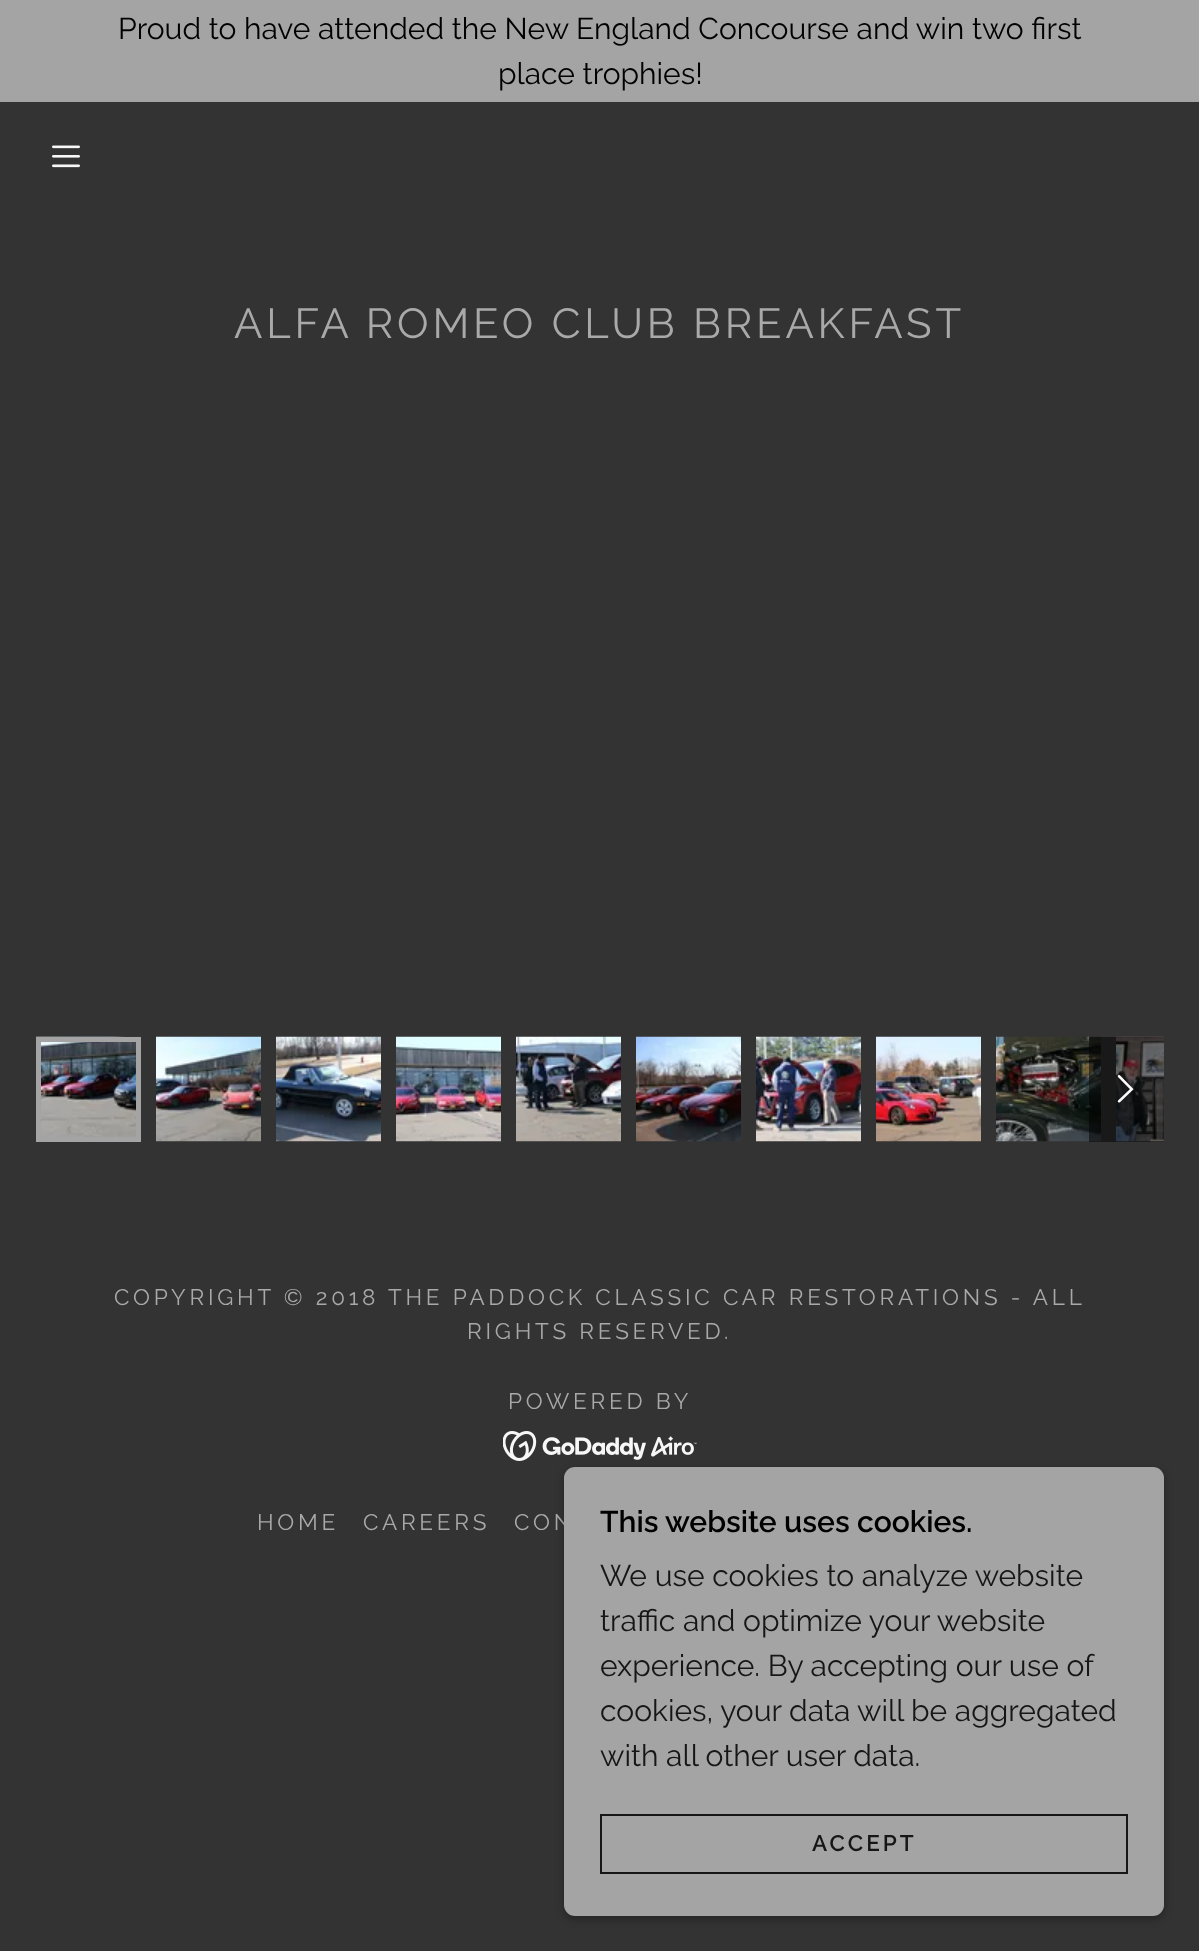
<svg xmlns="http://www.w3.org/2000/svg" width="1199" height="1951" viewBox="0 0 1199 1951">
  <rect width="100%" height="100%" fill="rgb(51,51,51)"/>
  <rect x="0" y="0" width="1199" height="102" fill="rgb(164,164,164)"/>
  <g font-family="Raleway" font-size="30" fill="rgb(0,0,0)">
    <text x="118" y="39">Proud to have attended the New England Concourse and win two first</text>
    <text x="498" y="84">place trophies!</text>
  </g>
  <image x="52" y="145" width="28" height="23" href="pic1.png"/>
  <text x="234" y="338" font-family="Raleway" font-size="42" letter-spacing="3.8" fill="rgb(169,169,169)">ALFA ROMEO CLUB BREAKFAST</text>
  <image x="36" y="1036" width="105" height="101" href="pic2.png"/>
  <rect x="38.5" y="1039.5" width="100" height="100" fill="none" stroke="rgb(164,164,164)" stroke-width="5"/>
  <image x="156" y="1036" width="105" height="106" href="pic3.png"/>
  <image x="276" y="1036" width="105" height="106" href="pic4.png"/>
  <image x="396" y="1036" width="105" height="106" href="pic5.png"/>
  <image x="516" y="1036" width="105" height="106" href="pic6.png"/>
  <image x="636" y="1036" width="105" height="106" href="pic7.png"/>
  <image x="756" y="1036" width="105" height="106" href="pic8.png"/>
  <image x="876" y="1036" width="105" height="106" href="pic9.png"/>
  <image x="996" y="1036" width="105" height="106" href="pic10.png"/>
  <image x="1116" y="1036" width="48" height="106" href="pic11.png"/>
  <rect x="1089" y="1037" width="75" height="105" fill="rgba(0,0,0,0.5)"/>
  <image x="1117" y="1075" width="17" height="28" href="pic12.png"/>
  <g font-family="Raleway" font-size="22.5" letter-spacing="3.75" fill="rgb(169,169,169)">
    <text x="114" y="1305">COPYRIGHT © 2018 THE PADDOCK CLASSIC CAR RESTORATIONS - ALL</text>
    <text x="467" y="1339">RIGHTS RESERVED.</text>
    <text x="508" y="1409">POWERED BY</text>
  </g>
  <image x="503" y="1431" width="194" height="30" href="pic13.png"/>
  <g font-family="Raleway" font-size="22.5" letter-spacing="3.75" fill="rgb(169,169,169)">
    <text x="257" y="1530">HOME</text>
    <text x="363" y="1530">CAREERS</text>
    <text x="514" y="1530">CON</text>
  </g>
  <rect x="564" y="1470" width="600" height="449" rx="11" fill="rgba(0,0,0,0.3)" filter="blur(4.5px)"/>
  <rect x="564" y="1467" width="600" height="449" rx="11" fill="rgb(164,164,164)"/>
  <text x="600" y="1532" font-family="Raleway" font-size="30" font-weight="600" fill="rgb(0,0,0)">This website uses cookies.</text>
  <g font-family="Raleway" font-size="30" fill="rgb(22,22,22)">
    <text>
      <tspan x="600" y="1586">We use cookies to analyze website</tspan>
      <tspan x="600" y="1631">traffic and optimize your website</tspan>
      <tspan x="600" y="1676">experience. By accepting our use of</tspan>
      <tspan x="600" y="1721">cookies, your data will be aggregated</tspan>
      <tspan x="600" y="1766">with all other user data.</tspan>
    </text>
  </g>
  <rect x="601" y="1815" width="526" height="58" fill="none" stroke="rgb(22,22,22)" stroke-width="2"/>
  <text x="812" y="1851" font-family="Raleway" font-size="22.5" font-weight="600" letter-spacing="3" fill="rgb(22,22,22)">ACCEPT</text>
</svg>
